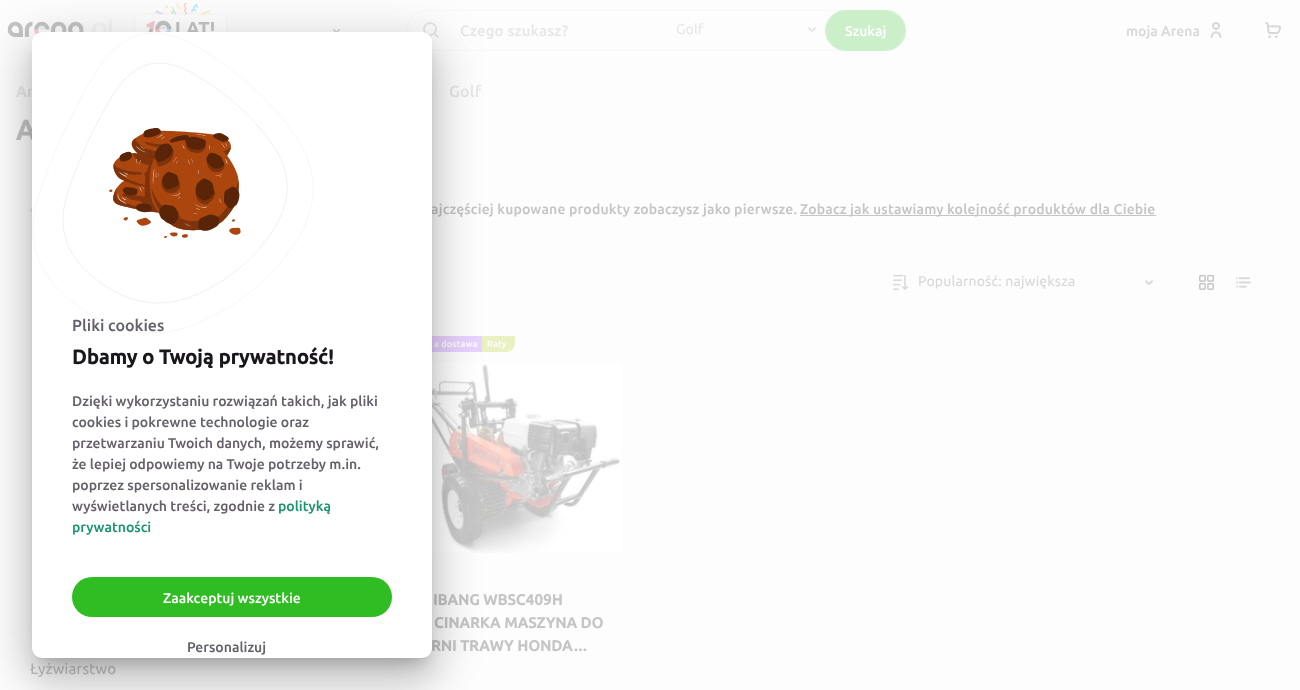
<svg xmlns="http://www.w3.org/2000/svg" width="1300" height="690" viewBox="0 0 1300 690">
  <rect width="100%" height="100%" fill="rgb(253,253,253)"/>
  <image x="7" y="3" width="221" height="34" href="pic1.png"/>
  <image x="333" y="29" width="7" height="3" href="pic2.png"/>
  <rect x="406.5" y="10.5" width="499" height="40" rx="20" fill="none" stroke="rgb(247,248,249)"/>
  <image x="423" y="22" width="16" height="16" href="pic3.png"/>
  <text x="460" y="36" font-family="Ubuntu" font-size="15" font-weight="500" letter-spacing="0.17" fill="rgb(231,231,231)">Czego szukasz?</text>
  <text x="676" y="34" font-family="Ubuntu" font-size="14" letter-spacing="0.17" fill="rgb(231,231,231)">Golf</text>
  <image x="808" y="27" width="8" height="5" href="pic4.png"/>
  <rect x="825.5" y="10.5" width="80" height="40" rx="20" fill="none" stroke="rgb(203,239,200)"/>
  <rect x="826" y="11" width="79" height="39" rx="19.5" fill="rgb(203,239,200)"/>
  <text x="845" y="36" font-family="Ubuntu" font-size="14" font-weight="500" fill="rgb(255,255,255)">Szukaj</text>
  <text x="1126" y="36" font-family="Ubuntu" font-size="14" font-weight="500" fill="rgb(217,215,218)">moja Arena</text>
  <image x="1210" y="22" width="12" height="16" href="pic5.png"/>
  <image x="1265" y="22" width="16" height="16" href="pic6.png"/>
  <text x="16" y="97" font-family="Ubuntu" font-size="16" font-weight="500" letter-spacing="0.17" fill="rgb(231,231,231)">Ar</text>
  <image x="432" y="91" width="1" height="3" href="pic7.png"/>
  <text x="449" y="97" font-family="Ubuntu" font-size="16" font-weight="500" letter-spacing="0.17" fill="rgb(231,231,231)">Golf</text>
  <text x="16" y="140" font-family="Ubuntu" font-size="28" font-weight="bold" letter-spacing="0.17" fill="rgb(198,197,198)">A</text>
  <text x="431" y="214" font-family="Ubuntu" font-size="14" font-weight="500" letter-spacing="0.17" fill="rgb(198,197,198)">ajczęściej kupowane produkty zobaczysz jako pierwsze.</text>
  <rect x="800" y="215" width="356" height="1" fill="rgb(198,197,198)"/>
  <text x="800" y="214" font-family="Ubuntu" font-size="14" font-weight="500" letter-spacing="0.17" fill="rgb(198,197,198)">Zobacz jak ustawiamy kolejność produktów dla Ciebie</text>
  <image x="893" y="274" width="15" height="16" href="pic8.png"/>
  <text x="918" y="286" font-family="Ubuntu" font-size="14" letter-spacing="0.17" fill="rgb(217,215,218)">Popularność: największa</text>
  <image x="1145" y="280" width="8" height="5" href="pic9.png"/>
  <image x="1199" y="274" width="15" height="16" href="pic10.png"/>
  <image x="1236" y="277" width="15" height="11" href="pic11.png"/>
  <rect x="432" y="336" width="50" height="16" fill="rgba(223,191,255,0.7)"/>
  <text x="434" y="347" font-family="Ubuntu" font-size="9" font-weight="500" letter-spacing="0.17" fill="rgb(255,255,255)">a dostawa</text>
  <path d="M482 336H515V343C515 348 511 352 506 352H482Z" fill="rgb(233,240,193)"/>
  <text x="487" y="347" font-family="Ubuntu" font-size="9" font-weight="500" letter-spacing="0.17" fill="rgb(255,255,255)">Raty</text>
  <image x="432" y="362" width="190" height="191" href="pic12.png"/>
  <g font-family="Ubuntu" font-size="15" font-weight="bold" letter-spacing="0.17" fill="rgb(198,197,198)">
    <text x="433" y="605">IBANG WBSC409H</text>
    <text x="434" y="628">CINARKA MASZYNA DO</text>
    <text x="431" y="651">RNI TRAWY HONDA…</text>
  </g>
  <image x="30" y="207" width="2" height="6" href="pic13.png"/>
  <text x="30" y="674" font-family="Ubuntu" font-size="15" letter-spacing="0.17" fill="rgb(198,197,198)">Łyżwiarstwo</text>
  <rect x="24" y="33" width="416" height="642" rx="18" fill="rgba(0,0,0,0.12)" filter="blur(23px)"/>
  <rect x="29" y="53" width="406" height="632" rx="13" fill="rgba(0,0,0,0.14)" filter="blur(19px)"/>
  <rect x="39" y="50" width="386" height="612" rx="3" fill="rgba(0,0,0,0.2)" filter="blur(7.5px)"/>
  <rect x="32" y="32" width="400" height="626" rx="10" fill="rgb(255,255,255)"/>
  <image x="32" y="32" width="282" height="302" href="pic14.png"/>
  <text x="72" y="331" font-family="Ubuntu" font-size="16" font-weight="500" fill="rgb(101,96,105)">Pliki cookies</text>
  <text x="72" y="364" font-family="Ubuntu" font-size="20" font-weight="bold" letter-spacing="0.17" fill="rgb(26,23,28)">Dbamy o Twoją prywatność!</text>
  <g font-family="Ubuntu" font-size="14" font-weight="500" fill="rgb(101,96,105)">
    <text>
      <tspan x="72" y="406">Dzięki wykorzystaniu rozwiązań takich, jak pliki</tspan>
      <tspan x="72" y="427">cookies i pokrewne technologie oraz</tspan>
      <tspan x="72" y="448">przetwarzaniu Twoich danych, możemy sprawić,</tspan>
      <tspan x="72" y="469">że lepiej odpowiemy na Twoje potrzeby m.in.</tspan>
      <tspan x="72" y="490">poprzez spersonalizowanie reklam i</tspan>
      <tspan x="72" y="511">wyświetlanych treści, zgodnie z</tspan>
    </text>
  </g>
  <g font-family="Ubuntu" font-size="14" font-weight="500" fill="rgb(26,147,111)">
    <text x="278" y="511">polityką</text>
    <text x="72" y="532">prywatności</text>
  </g>
  <rect x="72" y="577" width="320" height="40" rx="20" fill="rgb(48,189,36)"/>
  <text x="163" y="603" font-family="Ubuntu" font-size="14" font-weight="500" fill="rgb(255,255,255)">Zaakceptuj wszystkie</text>
  <text x="187" y="652" font-family="Ubuntu" font-size="14" font-weight="500" fill="rgb(101,96,105)">Personalizuj</text>
</svg>
